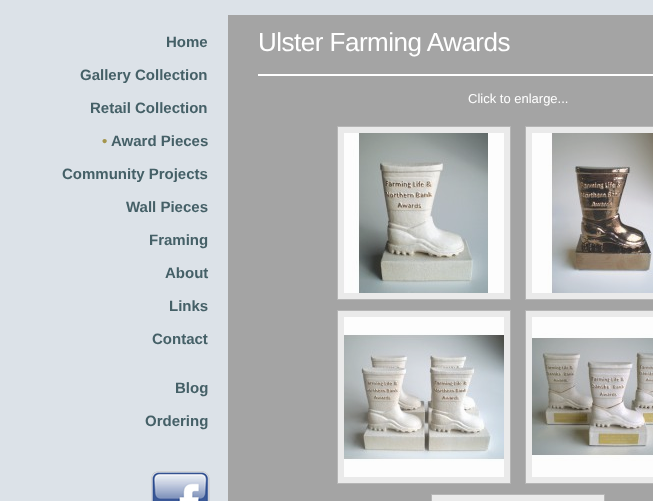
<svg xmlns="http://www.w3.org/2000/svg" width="653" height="501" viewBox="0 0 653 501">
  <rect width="100%" height="100%" fill="rgb(220,226,232)"/>
  <g font-family="Liberation Sans" font-size="15" font-weight="bold" fill="rgb(69,96,103)">
    <text x="166" y="47">Home</text>
    <text x="80" y="80">Gallery Collection</text>
    <text x="90" y="113">Retail Collection</text>
  </g>
  <text x="102" y="146" font-family="Liberation Sans" font-size="15" font-weight="bold" fill="rgb(164,149,77)">•</text>
  <g font-family="Liberation Sans" font-size="15" font-weight="bold" fill="rgb(69,96,103)">
    <text x="111" y="146">Award Pieces</text>
    <text x="62" y="179">Community Projects</text>
    <text x="126" y="212">Wall Pieces</text>
    <text x="149" y="245">Framing</text>
    <text x="165" y="278">About</text>
    <text x="169" y="311">Links</text>
    <text x="152" y="344">Contact</text>
    <text x="175" y="393">Blog</text>
    <text x="145" y="426">Ordering</text>
  </g>
  <image x="151" y="471" width="59" height="30" href="pic1.png"/>
  <rect x="228" y="15" width="425" height="486" fill="rgb(164,164,164)"/>
  <text x="258" y="51" font-family="Liberation Sans" font-size="26" letter-spacing="-0.5" fill="rgb(255,255,255)">Ulster Farming Awards</text>
  <rect x="258" y="74" width="395" height="2" fill="rgb(255,255,255)"/>
  <text x="468" y="103" font-family="Liberation Sans" font-size="13" fill="rgb(255,255,255)">Click to enlarge...</text>
  <rect x="337.5" y="126.5" width="173" height="173" fill="rgb(234,234,234)" stroke="rgb(181,181,181)"/>
  <image x="344" y="133" width="160" height="160" href="pic2.png"/>
  <rect x="525.5" y="126.5" width="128" height="173" fill="rgb(234,234,234)" stroke="rgb(181,181,181)"/>
  <image x="532" y="133" width="121" height="160" href="pic3.png"/>
  <rect x="337.5" y="310.5" width="173" height="173" fill="rgb(234,234,234)" stroke="rgb(181,181,181)"/>
  <image x="344" y="317" width="160" height="160" href="pic4.png"/>
  <rect x="525.5" y="310.5" width="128" height="173" fill="rgb(234,234,234)" stroke="rgb(181,181,181)"/>
  <image x="532" y="317" width="121" height="160" href="pic5.png"/>
  <rect x="431.5" y="494.5" width="173" height="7" fill="rgb(234,234,234)" stroke="rgb(181,181,181)"/>
</svg>
